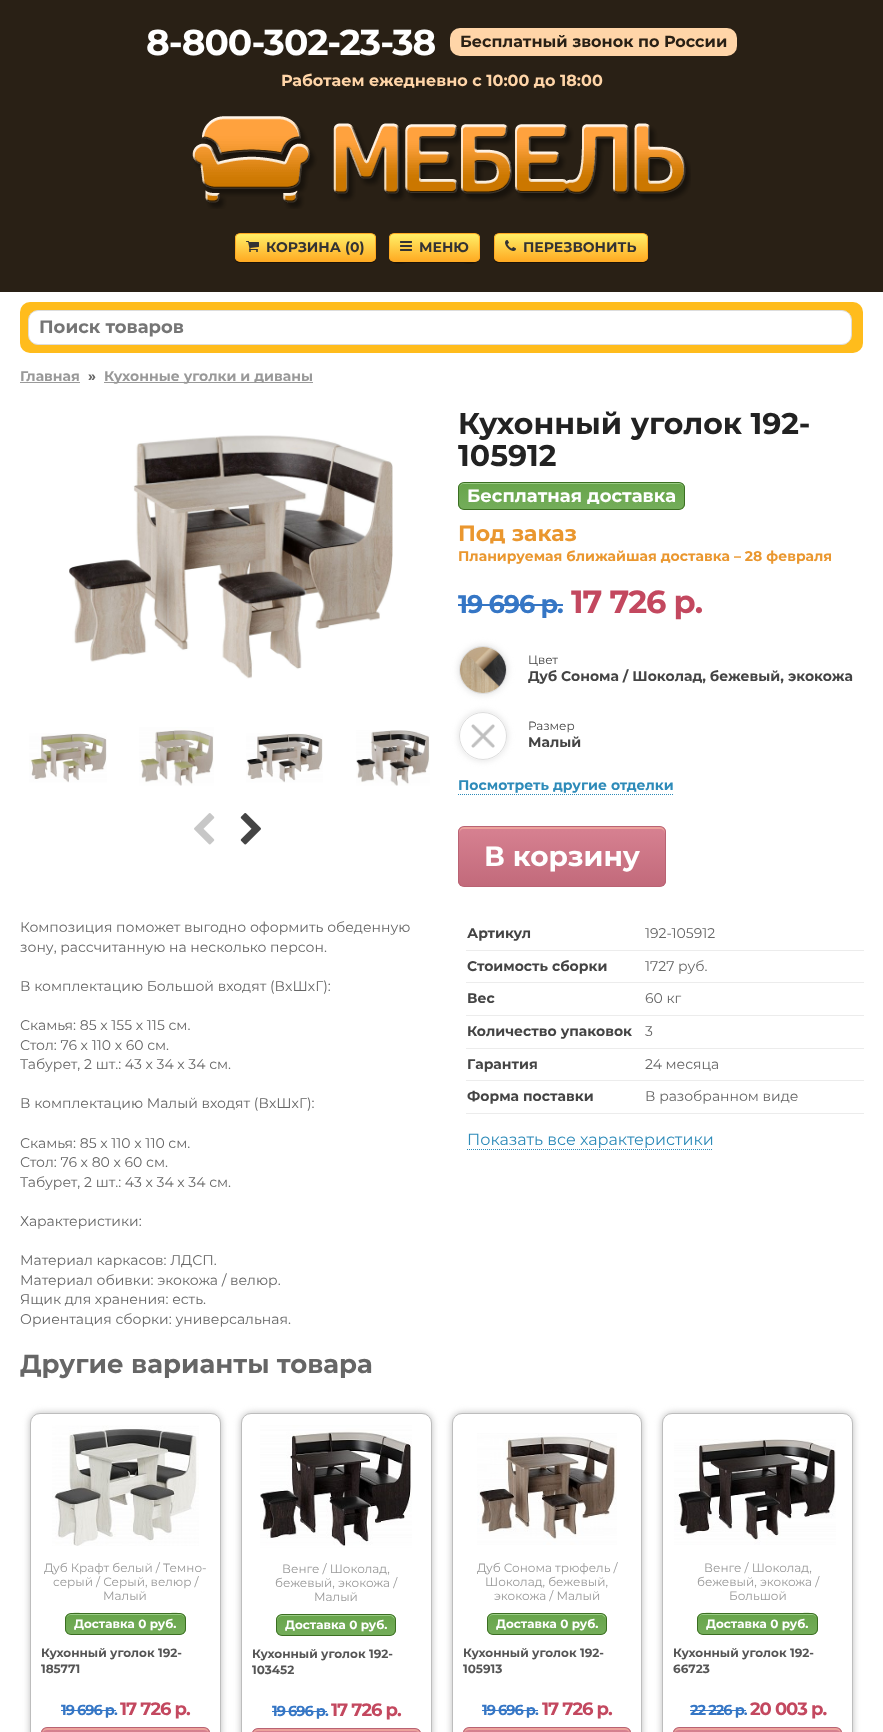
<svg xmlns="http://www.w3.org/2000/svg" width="883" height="1732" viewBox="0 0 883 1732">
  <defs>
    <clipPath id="clip1"><rect x="235" y="233" width="141" height="29" rx="5"/></clipPath>
    <linearGradient id="g1" gradientUnits="userSpaceOnUse" x1="306" y1="234" x2="306" y2="261"><stop offset="0.05" stop-color="rgb(255,236,100)"/><stop offset="1" stop-color="rgb(255,171,35)"/></linearGradient>
    <clipPath id="clip2"><rect x="389" y="233" width="91" height="29" rx="5"/></clipPath>
    <linearGradient id="g2" gradientUnits="userSpaceOnUse" x1="435" y1="234" x2="435" y2="261"><stop offset="0.05" stop-color="rgb(255,236,100)"/><stop offset="1" stop-color="rgb(255,171,35)"/></linearGradient>
    <clipPath id="clip3"><rect x="494" y="233" width="154" height="29" rx="5"/></clipPath>
    <linearGradient id="g3" gradientUnits="userSpaceOnUse" x1="571" y1="234" x2="571" y2="261"><stop offset="0.05" stop-color="rgb(255,236,100)"/><stop offset="1" stop-color="rgb(255,171,35)"/></linearGradient>
    <clipPath id="clip4"><rect x="458" y="482" width="227" height="28" rx="6"/></clipPath>
    <linearGradient id="g4" gradientUnits="userSpaceOnUse" x1="572" y1="483" x2="572" y2="509"><stop offset="0.05" stop-color="rgb(104,165,75)"/><stop offset="1" stop-color="rgb(116,173,90)"/></linearGradient>
    <clipPath id="clip5"><path d="M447 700H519V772H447ZM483 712C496.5 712 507 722.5 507 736C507 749.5 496.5 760 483 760C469.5 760 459 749.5 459 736C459 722.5 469.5 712 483 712Z" clip-rule="evenodd"/></clipPath>
    <clipPath id="clip6"><rect x="458" y="826" width="208" height="61" rx="6"/></clipPath>
    <linearGradient id="g5" gradientUnits="userSpaceOnUse" x1="562" y1="827" x2="562" y2="886"><stop offset="0.05" stop-color="rgb(214,128,144)"/><stop offset="1" stop-color="rgb(194,106,123)"/></linearGradient>
    <clipPath id="clip7"><rect x="65" y="1613" width="121" height="22" rx="6"/></clipPath>
    <linearGradient id="g6" gradientUnits="userSpaceOnUse" x1="126" y1="1614" x2="126" y2="1634"><stop offset="0.05" stop-color="rgb(104,165,75)"/><stop offset="1" stop-color="rgb(116,173,90)"/></linearGradient>
    <clipPath id="clip8"><rect x="41" y="1727" width="169" height="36" rx="6"/></clipPath>
    <linearGradient id="g7" gradientUnits="userSpaceOnUse" x1="126" y1="1728" x2="126" y2="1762"><stop offset="0.05" stop-color="rgb(214,128,144)"/><stop offset="1" stop-color="rgb(194,106,123)"/></linearGradient>
    <clipPath id="clip9"><rect x="276" y="1614" width="120" height="22" rx="6"/></clipPath>
    <linearGradient id="g8" gradientUnits="userSpaceOnUse" x1="336" y1="1615" x2="336" y2="1635"><stop offset="0.05" stop-color="rgb(104,165,75)"/><stop offset="1" stop-color="rgb(116,173,90)"/></linearGradient>
    <clipPath id="clip10"><rect x="252" y="1728" width="169" height="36" rx="6"/></clipPath>
    <linearGradient id="g9" gradientUnits="userSpaceOnUse" x1="337" y1="1729" x2="337" y2="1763"><stop offset="0.05" stop-color="rgb(214,128,144)"/><stop offset="1" stop-color="rgb(194,106,123)"/></linearGradient>
    <clipPath id="clip11"><rect x="487" y="1613" width="120" height="22" rx="6"/></clipPath>
    <linearGradient id="g10" gradientUnits="userSpaceOnUse" x1="547" y1="1614" x2="547" y2="1634"><stop offset="0.05" stop-color="rgb(104,165,75)"/><stop offset="1" stop-color="rgb(116,173,90)"/></linearGradient>
    <clipPath id="clip12"><rect x="463" y="1727" width="168" height="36" rx="6"/></clipPath>
    <linearGradient id="g11" gradientUnits="userSpaceOnUse" x1="547" y1="1728" x2="547" y2="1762"><stop offset="0.05" stop-color="rgb(214,128,144)"/><stop offset="1" stop-color="rgb(194,106,123)"/></linearGradient>
    <clipPath id="clip13"><rect x="697" y="1613" width="121" height="22" rx="6"/></clipPath>
    <linearGradient id="g12" gradientUnits="userSpaceOnUse" x1="758" y1="1614" x2="758" y2="1634"><stop offset="0.05" stop-color="rgb(104,165,75)"/><stop offset="1" stop-color="rgb(116,173,90)"/></linearGradient>
    <clipPath id="clip14"><rect x="673" y="1727" width="169" height="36" rx="6"/></clipPath>
    <linearGradient id="g13" gradientUnits="userSpaceOnUse" x1="758" y1="1728" x2="758" y2="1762"><stop offset="0.05" stop-color="rgb(214,128,144)"/><stop offset="1" stop-color="rgb(194,106,123)"/></linearGradient>
  </defs>
  <rect width="100%" height="100%" fill="rgb(255,255,255)"/>
  <rect x="0" y="0" width="883" height="292" fill="rgb(41,32,21)"/>
  <text x="146" y="55" font-family="Montserrat" font-size="36" font-weight="bold" letter-spacing="-1" fill="rgb(255,255,255)">8-800-302-23-38</text>
  <rect x="450" y="28" width="287" height="28" rx="10" fill="rgb(255,213,168)"/>
  <text x="460" y="47" font-family="Montserrat" font-size="16" font-weight="bold" fill="rgb(41,32,21)">Бесплатный звонок по России</text>
  <text x="281" y="86" font-family="Montserrat" font-size="16" font-weight="bold" fill="rgb(255,213,168)">Работаем ежедневно с 10:00 до 18:00</text>
  <image x="192" y="116" width="499" height="93" href="pic1.png"/>
  <path d="M235 257V258C235 261 237 263 240 263H371C374 263 376 261 376 258V257C376 260 374 262 371 262H240C237 262 235 260 235 257Z" fill="rgb(29,20,8)"/>
  <g clip-path="url(#clip1)">
    <rect x="235" y="234" width="141" height="27" fill="url(#g1)"/>
  </g>
  <rect x="235.5" y="233.5" width="140" height="28" rx="4.5" fill="none" stroke="rgb(255,170,34)"/>
  <image x="246" y="241" width="13" height="11" href="pic2.png"/>
  <text x="266" y="252" font-family="Montserrat" font-size="14" font-weight="bold" fill="rgb(51,51,51)">КОРЗИНА (0)</text>
  <path d="M389 257C389 266 402 263 408 263H462C467 263 480 266 480 257C480 260 478 262 475 262H394C391 262 389 260 389 257Z" fill="rgb(29,20,8)"/>
  <g clip-path="url(#clip2)">
    <rect x="389" y="234" width="91" height="27" fill="url(#g2)"/>
  </g>
  <rect x="389.5" y="233.5" width="90" height="28" rx="4.5" fill="none" stroke="rgb(255,170,34)"/>
  <image x="400" y="241" width="12" height="10" href="pic3.png"/>
  <text x="419" y="252" font-family="Montserrat" font-size="14" font-weight="bold" fill="rgb(51,51,51)">МЕНЮ</text>
  <path d="M494 257V258C494 261 496 263 499 263H643C646 263 648 261 648 258V257C648 260 646 262 643 262H499C496 262 494 260 494 257Z" fill="rgb(29,20,8)"/>
  <g clip-path="url(#clip3)">
    <rect x="494" y="234" width="154" height="27" fill="url(#g3)"/>
  </g>
  <rect x="494.5" y="233.5" width="153" height="28" rx="4.5" fill="none" stroke="rgb(255,170,34)"/>
  <image x="505" y="240" width="11" height="11" href="pic4.png"/>
  <text x="523" y="252" font-family="Montserrat" font-size="14" font-weight="bold" fill="rgb(51,51,51)">ПЕРЕЗВОНИТЬ</text>
  <rect x="20" y="302" width="843" height="51" rx="10" fill="rgb(255,188,28)"/>
  <rect x="28.5" y="310.5" width="823" height="34" rx="9.5" fill="rgb(255,255,255)" stroke="rgb(221,221,221)"/>
  <text x="39" y="333" font-family="Montserrat" font-size="18" font-weight="bold" fill="rgb(117,117,117)">Поиск товаров</text>
  <text x="20" y="381" font-family="Montserrat" font-size="14" font-weight="bold" fill="rgb(153,153,153)">Главная</text>
  <rect x="20" y="382" width="60" height="1" fill="rgb(153,153,153)"/>
  <text x="88" y="381" font-family="Montserrat" font-size="14" font-weight="bold" fill="rgb(102,102,102)">»</text>
  <rect x="104" y="382" width="209" height="1" fill="rgb(153,153,153)"/>
  <text x="104" y="381" font-family="Montserrat" font-size="14" font-weight="bold" fill="rgb(153,153,153)">Кухонные уголки и диваны</text>
  <image x="69" y="435" width="324" height="244" href="pic5.png"/>
  <image x="29" y="733" width="78" height="50" href="pic6.png"/>
  <image x="139" y="727" width="75" height="59" href="pic7.png"/>
  <image x="246" y="733" width="77" height="50" href="pic8.png"/>
  <image x="356" y="730" width="74" height="56" href="pic9.png"/>
  <image x="194" y="813" width="21" height="32" href="pic10.png"/>
  <image x="240" y="813" width="21" height="32" href="pic11.png"/>
  <g font-family="Montserrat" font-size="30" font-weight="bold" fill="rgb(34,34,34)">
    <text>
      <tspan x="458" y="434">Кухонный уголок 192-</tspan>
      <tspan x="458" y="466">105912</tspan>
    </text>
  </g>
  <g clip-path="url(#clip4)">
    <rect x="458" y="483" width="227" height="26" fill="url(#g4)"/>
  </g>
  <path d="M464 484H679C682 484 684 486 684 489V488C684 485 682 483 679 483H464C461 483 459 485 459 488V489C459 486 461 484 464 484Z" fill="rgb(154,204,133)"/>
  <rect x="458.5" y="482.5" width="226" height="27" rx="5.5" fill="none" stroke="rgb(59,110,34)"/>
  <text x="467" y="502" font-family="Montserrat" font-size="18" font-weight="bold" fill="rgb(255,255,255)">Бесплатная доставка</text>
  <image x="459" y="525" width="372" height="39" href="pic12.png"/>
  <text x="458" y="613" font-family="Montserrat" font-size="25.5" font-weight="bold" letter-spacing="-1" fill="rgb(53,118,197)">19 696 р.</text>
  <rect x="458" y="604" width="105" height="2" fill="rgb(53,118,197)"/>
  <text x="571" y="613" font-family="Montserrat" font-size="32" font-weight="bold" letter-spacing="-1" fill="rgb(195,72,95)">17 726 р.</text>
  <rect x="459" y="646" width="48" height="48" rx="24" fill="rgb(221,221,221)" filter="blur(3.5px)"/>
  <circle cx="483" cy="670" r="23.5" fill="none" stroke="rgb(221,221,221)"/>
  <image x="460" y="647" width="46" height="46" href="pic13.png"/>
  <text x="528" y="664" font-family="Montserrat" font-size="12" fill="rgb(68,68,68)">Цвет</text>
  <text x="528" y="681" font-family="Montserrat" font-size="14" font-weight="bold" fill="rgb(68,68,68)">Дуб Сонома / Шоколад, бежевый, экокожа</text>
  <g clip-path="url(#clip5)">
    <rect x="459" y="712" width="48" height="48" rx="24" fill="rgb(221,221,221)" filter="blur(3.5px)"/>
  </g>
  <circle cx="483" cy="736" r="23.5" fill="none" stroke="rgb(221,221,221)"/>
  <image x="471" y="724" width="24" height="24" href="pic14.png"/>
  <text x="528" y="730" font-family="Montserrat" font-size="12" fill="rgb(68,68,68)">Размер</text>
  <text x="528" y="747" font-family="Montserrat" font-size="14" font-weight="bold" fill="rgb(68,68,68)">Малый</text>
  <text x="458" y="790" font-family="Montserrat" font-size="14" font-weight="bold" fill="rgb(46,139,185)">Посмотреть другие отделки</text>
  <path d="M458 794.5H673" fill="none" stroke="rgb(46,139,185)" stroke-dasharray="1 1"/>
  <g clip-path="url(#clip6)">
    <rect x="458" y="827" width="208" height="59" fill="url(#g5)"/>
  </g>
  <path d="M464 829H660C663 829 665 831 665 834V832C665 829 663 827 660 827H464C461 827 459 829 459 832V834C459 831 461 829 464 829Z" fill="rgb(236,163,156)"/>
  <rect x="458.5" y="826.5" width="207" height="60" rx="5.5" fill="none" stroke="rgb(185,99,115)"/>
  <text x="484" y="866" font-family="Montserrat" font-size="28" font-weight="bold" fill="rgb(255,255,255)">В корзину</text>
  <g font-family="Montserrat" font-size="14" fill="rgb(102,102,102)">
    <text>
      <tspan x="20" y="932">Композиция поможет выгодно оформить обеденную</tspan>
      <tspan x="20" y="952">зону, рассчитанную на несколько персон.</tspan>
    </text>
    <text x="20" y="991">В комплектацию Большой входят (ВхШхГ):</text>
    <text>
      <tspan x="20" y="1030">Скамья: 85 х 155 х 115 см.</tspan>
      <tspan x="20" y="1050">Стол: 76 х 110 х 60 см.</tspan>
      <tspan x="20" y="1069">Табурет, 2 шт.: 43 х 34 х 34 см.</tspan>
    </text>
    <text x="20" y="1108">В комплектацию Малый входят (ВхШхГ):</text>
    <text>
      <tspan x="20" y="1148">Скамья: 85 х 110 х 110 см.</tspan>
      <tspan x="20" y="1167">Стол: 76 х 80 х 60 см.</tspan>
      <tspan x="20" y="1187">Табурет, 2 шт.: 43 х 34 х 34 см.</tspan>
    </text>
    <text x="20" y="1226">Характеристики:</text>
    <text>
      <tspan x="20" y="1265">Материал каркасов: ЛДСП.</tspan>
      <tspan x="20" y="1285">Материал обивки: экокожа / велюр.</tspan>
      <tspan x="20" y="1304">Ящик для хранения: есть.</tspan>
      <tspan x="20" y="1324">Ориентация сборки: универсальная.</tspan>
    </text>
  </g>
  <text x="467" y="938" font-family="Montserrat" font-size="14" font-weight="bold" fill="rgb(68,68,68)">Артикул</text>
  <rect x="466" y="950" width="398" height="1" fill="rgb(236,236,236)"/>
  <text x="645" y="938" font-family="Montserrat" font-size="14" fill="rgb(102,102,102)">192-105912</text>
  <text x="467" y="971" font-family="Montserrat" font-size="14" font-weight="bold" fill="rgb(68,68,68)">Стоимость сборки</text>
  <rect x="466" y="982" width="398" height="1" fill="rgb(236,236,236)"/>
  <text x="645" y="971" font-family="Montserrat" font-size="14" fill="rgb(102,102,102)">1727 руб.</text>
  <text x="467" y="1003" font-family="Montserrat" font-size="14" font-weight="bold" fill="rgb(68,68,68)">Вес</text>
  <rect x="466" y="1015" width="398" height="1" fill="rgb(236,236,236)"/>
  <text x="645" y="1003" font-family="Montserrat" font-size="14" fill="rgb(102,102,102)">60 кг</text>
  <text x="467" y="1036" font-family="Montserrat" font-size="14" font-weight="bold" fill="rgb(68,68,68)">Количество упаковок</text>
  <rect x="466" y="1048" width="398" height="1" fill="rgb(236,236,236)"/>
  <text x="645" y="1036" font-family="Montserrat" font-size="14" fill="rgb(102,102,102)">3</text>
  <text x="467" y="1069" font-family="Montserrat" font-size="14" font-weight="bold" fill="rgb(68,68,68)">Гарантия</text>
  <rect x="466" y="1080" width="398" height="1" fill="rgb(236,236,236)"/>
  <text x="645" y="1069" font-family="Montserrat" font-size="14" fill="rgb(102,102,102)">24 месяца</text>
  <text x="467" y="1101" font-family="Montserrat" font-size="14" font-weight="bold" fill="rgb(68,68,68)">Форма поставки</text>
  <rect x="466" y="1113" width="398" height="1" fill="rgb(236,236,236)"/>
  <text x="645" y="1101" font-family="Montserrat" font-size="14" fill="rgb(102,102,102)">В разобранном виде</text>
  <text x="467" y="1145" font-family="Montserrat" font-size="16" fill="rgb(46,139,185)">Показать все характеристики</text>
  <path d="M467 1149.5H713" fill="none" stroke="rgb(46,139,185)" stroke-dasharray="1 1"/>
  <text x="20" y="1373" font-family="Montserrat" font-size="26" font-weight="bold" fill="rgb(102,102,102)">Другие варианты товара</text>
  <rect x="30" y="1413" width="191" height="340" rx="10" fill="rgb(189,189,189)" filter="blur(3.5px)"/>
  <rect x="30.5" y="1413.5" width="190" height="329" rx="9.5" fill="rgb(255,255,255)" stroke="rgb(189,189,189)"/>
  <image x="52" y="1425" width="147" height="121" href="pic15.png"/>
  <g font-family="Montserrat" font-size="12" fill="rgb(153,153,153)">
    <text x="44" y="1572">Дуб Крафт белый / Темно-</text>
    <text x="53" y="1586">серый / Серый, велюр /</text>
    <text x="103" y="1600">Малый</text>
  </g>
  <g clip-path="url(#clip7)">
    <rect x="65" y="1614" width="121" height="20" fill="url(#g6)"/>
  </g>
  <path d="M71 1615H180C183 1615 185 1617 185 1620C185 1609 166 1614 162 1614H89C85 1614 66 1609 66 1620C66 1617 68 1615 71 1615Z" fill="rgb(154,204,133)"/>
  <rect x="65.5" y="1613.5" width="120" height="21" rx="5.5" fill="none" stroke="rgb(59,110,34)"/>
  <text x="74" y="1628" font-family="Montserrat" font-size="12" font-weight="bold" fill="rgb(255,255,255)">Доставка 0 руб.</text>
  <g font-family="Montserrat" font-size="12" font-weight="bold" fill="rgb(85,85,85)">
    <text>
      <tspan x="41" y="1657">Кухонный уголок 192-</tspan>
      <tspan x="41" y="1673">185771</tspan>
    </text>
  </g>
  <text x="61" y="1715" font-family="Montserrat" font-size="14.5" font-weight="bold" letter-spacing="-1" fill="rgb(53,118,197)">19 696 р.</text>
  <rect x="61" y="1710" width="55" height="1" fill="rgb(53,118,197)"/>
  <text x="120" y="1715" font-family="Montserrat" font-size="18" font-weight="bold" letter-spacing="-1" fill="rgb(195,72,95)">17 726 р.</text>
  <g clip-path="url(#clip8)">
    <rect x="41" y="1728" width="169" height="4" fill="url(#g7)"/>
  </g>
  <path d="M47 1730H204C207 1730 209 1732 209 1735V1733C209 1730 207 1728 204 1728H47C44 1728 42 1730 42 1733V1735C42 1732 44 1730 47 1730Z" fill="rgb(236,163,156)"/>
  <rect x="41.5" y="1727.5" width="168" height="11" rx="5.5" fill="none" stroke="rgb(185,99,115)"/>
  <rect x="241" y="1413" width="191" height="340" rx="10" fill="rgb(189,189,189)" filter="blur(3.5px)"/>
  <rect x="241.5" y="1413.5" width="190" height="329" rx="9.5" fill="rgb(255,255,255)" stroke="rgb(189,189,189)"/>
  <image x="260" y="1425" width="152" height="123" href="pic16.png"/>
  <g font-family="Montserrat" font-size="12" fill="rgb(153,153,153)">
    <text x="282" y="1573">Венге / Шоколад,</text>
    <text x="275" y="1587">бежевый, экокожа /</text>
    <text x="314" y="1601">Малый</text>
  </g>
  <g clip-path="url(#clip9)">
    <rect x="276" y="1615" width="120" height="20" fill="url(#g8)"/>
  </g>
  <path d="M282 1616H391C393 1617 395 1619 395 1621V1620C395 1617 393 1615 390 1615H282C279 1615 277 1617 277 1620V1624C277 1621 277 1616 282 1616Z" fill="rgb(154,204,133)"/>
  <rect x="276.5" y="1614.5" width="119" height="21" rx="5.5" fill="none" stroke="rgb(59,110,34)"/>
  <text x="285" y="1629" font-family="Montserrat" font-size="12" font-weight="bold" fill="rgb(255,255,255)">Доставка 0 руб.</text>
  <g font-family="Montserrat" font-size="12" font-weight="bold" fill="rgb(85,85,85)">
    <text>
      <tspan x="252" y="1658">Кухонный уголок 192-</tspan>
      <tspan x="252" y="1674">103452</tspan>
    </text>
  </g>
  <text x="272" y="1716" font-family="Montserrat" font-size="14.5" font-weight="bold" letter-spacing="-1" fill="rgb(53,118,197)">19 696 р.</text>
  <rect x="272" y="1711" width="55" height="1" fill="rgb(53,118,197)"/>
  <text x="331" y="1716" font-family="Montserrat" font-size="18" font-weight="bold" letter-spacing="-1" fill="rgb(195,72,95)">17 726 р.</text>
  <g clip-path="url(#clip10)">
    <rect x="252" y="1729" width="169" height="3" fill="url(#g9)"/>
  </g>
  <path d="M258 1731H415C418 1731 420 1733 420 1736V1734C420 1731 418 1729 415 1729H258C255 1729 253 1731 253 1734V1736C253 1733 255 1731 258 1731Z" fill="rgb(236,163,156)"/>
  <rect x="252.5" y="1728.5" width="168" height="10" rx="5.5" fill="none" stroke="rgb(185,99,115)"/>
  <rect x="452" y="1413" width="190" height="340" rx="10" fill="rgb(189,189,189)" filter="blur(3.5px)"/>
  <rect x="452.5" y="1413.5" width="189" height="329" rx="9.5" fill="rgb(255,255,255)" stroke="rgb(189,189,189)"/>
  <image x="477" y="1433" width="140" height="112" href="pic17.png"/>
  <g font-family="Montserrat" font-size="12" fill="rgb(153,153,153)">
    <text x="477" y="1572">Дуб Сонома трюфель /</text>
    <text x="485" y="1586">Шоколад, бежевый,</text>
    <text x="494" y="1600">экокожа / Малый</text>
  </g>
  <g clip-path="url(#clip11)">
    <rect x="487" y="1614" width="120" height="20" fill="url(#g10)"/>
  </g>
  <path d="M493 1615H602C604 1616 606 1618 606 1620V1619C606 1616 604 1614 601 1614H493C490 1614 488 1616 488 1619V1623C488 1620 488 1615 493 1615Z" fill="rgb(154,204,133)"/>
  <rect x="487.5" y="1613.5" width="119" height="21" rx="5.5" fill="none" stroke="rgb(59,110,34)"/>
  <text x="496" y="1628" font-family="Montserrat" font-size="12" font-weight="bold" fill="rgb(255,255,255)">Доставка 0 руб.</text>
  <g font-family="Montserrat" font-size="12" font-weight="bold" fill="rgb(85,85,85)">
    <text>
      <tspan x="463" y="1657">Кухонный уголок 192-</tspan>
      <tspan x="463" y="1673">105913</tspan>
    </text>
  </g>
  <text x="482" y="1715" font-family="Montserrat" font-size="14.5" font-weight="bold" letter-spacing="-1" fill="rgb(53,118,197)">19 696 р.</text>
  <rect x="482" y="1710" width="56" height="1" fill="rgb(53,118,197)"/>
  <text x="542" y="1715" font-family="Montserrat" font-size="18" font-weight="bold" letter-spacing="-1" fill="rgb(195,72,95)">17 726 р.</text>
  <g clip-path="url(#clip12)">
    <rect x="463" y="1728" width="168" height="4" fill="url(#g11)"/>
  </g>
  <path d="M469 1730H625C628 1730 630 1732 630 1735V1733C630 1730 628 1728 625 1728H469C466 1728 464 1730 464 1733V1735C464 1732 466 1730 469 1730Z" fill="rgb(236,163,156)"/>
  <rect x="463.5" y="1727.5" width="167" height="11" rx="5.5" fill="none" stroke="rgb(185,99,115)"/>
  <rect x="662" y="1413" width="191" height="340" rx="10" fill="rgb(189,189,189)" filter="blur(3.5px)"/>
  <rect x="662.5" y="1413.5" width="190" height="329" rx="9.5" fill="rgb(255,255,255)" stroke="rgb(189,189,189)"/>
  <image x="674" y="1439" width="162" height="106" href="pic18.png"/>
  <g font-family="Montserrat" font-size="12" fill="rgb(153,153,153)">
    <text x="704" y="1572">Венге / Шоколад,</text>
    <text x="697" y="1586">бежевый, экокожа /</text>
    <text x="729" y="1600">Большой</text>
  </g>
  <g clip-path="url(#clip13)">
    <rect x="697" y="1614" width="121" height="20" fill="url(#g12)"/>
  </g>
  <path d="M703 1615H812C815 1615 817 1617 817 1620C817 1609 798 1614 794 1614H721C717 1614 698 1609 698 1620C698 1617 700 1615 703 1615Z" fill="rgb(154,204,133)"/>
  <rect x="697.5" y="1613.5" width="120" height="21" rx="5.5" fill="none" stroke="rgb(59,110,34)"/>
  <text x="706" y="1628" font-family="Montserrat" font-size="12" font-weight="bold" fill="rgb(255,255,255)">Доставка 0 руб.</text>
  <g font-family="Montserrat" font-size="12" font-weight="bold" fill="rgb(85,85,85)">
    <text>
      <tspan x="673" y="1657">Кухонный уголок 192-</tspan>
      <tspan x="673" y="1673">66723</tspan>
    </text>
  </g>
  <text x="690" y="1715" font-family="Montserrat" font-size="14.5" font-weight="bold" letter-spacing="-1" fill="rgb(53,118,197)">22 226 р.</text>
  <rect x="690" y="1710" width="56" height="1" fill="rgb(53,118,197)"/>
  <text x="750" y="1715" font-family="Montserrat" font-size="18" font-weight="bold" letter-spacing="-1" fill="rgb(195,72,95)">20 003 р.</text>
  <g clip-path="url(#clip14)">
    <rect x="673" y="1728" width="169" height="4" fill="url(#g13)"/>
  </g>
  <path d="M679 1730H836C839 1730 841 1732 841 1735V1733C841 1730 839 1728 836 1728H679C676 1728 674 1730 674 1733V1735C674 1732 676 1730 679 1730Z" fill="rgb(236,163,156)"/>
  <rect x="673.5" y="1727.5" width="168" height="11" rx="5.5" fill="none" stroke="rgb(185,99,115)"/>
</svg>
